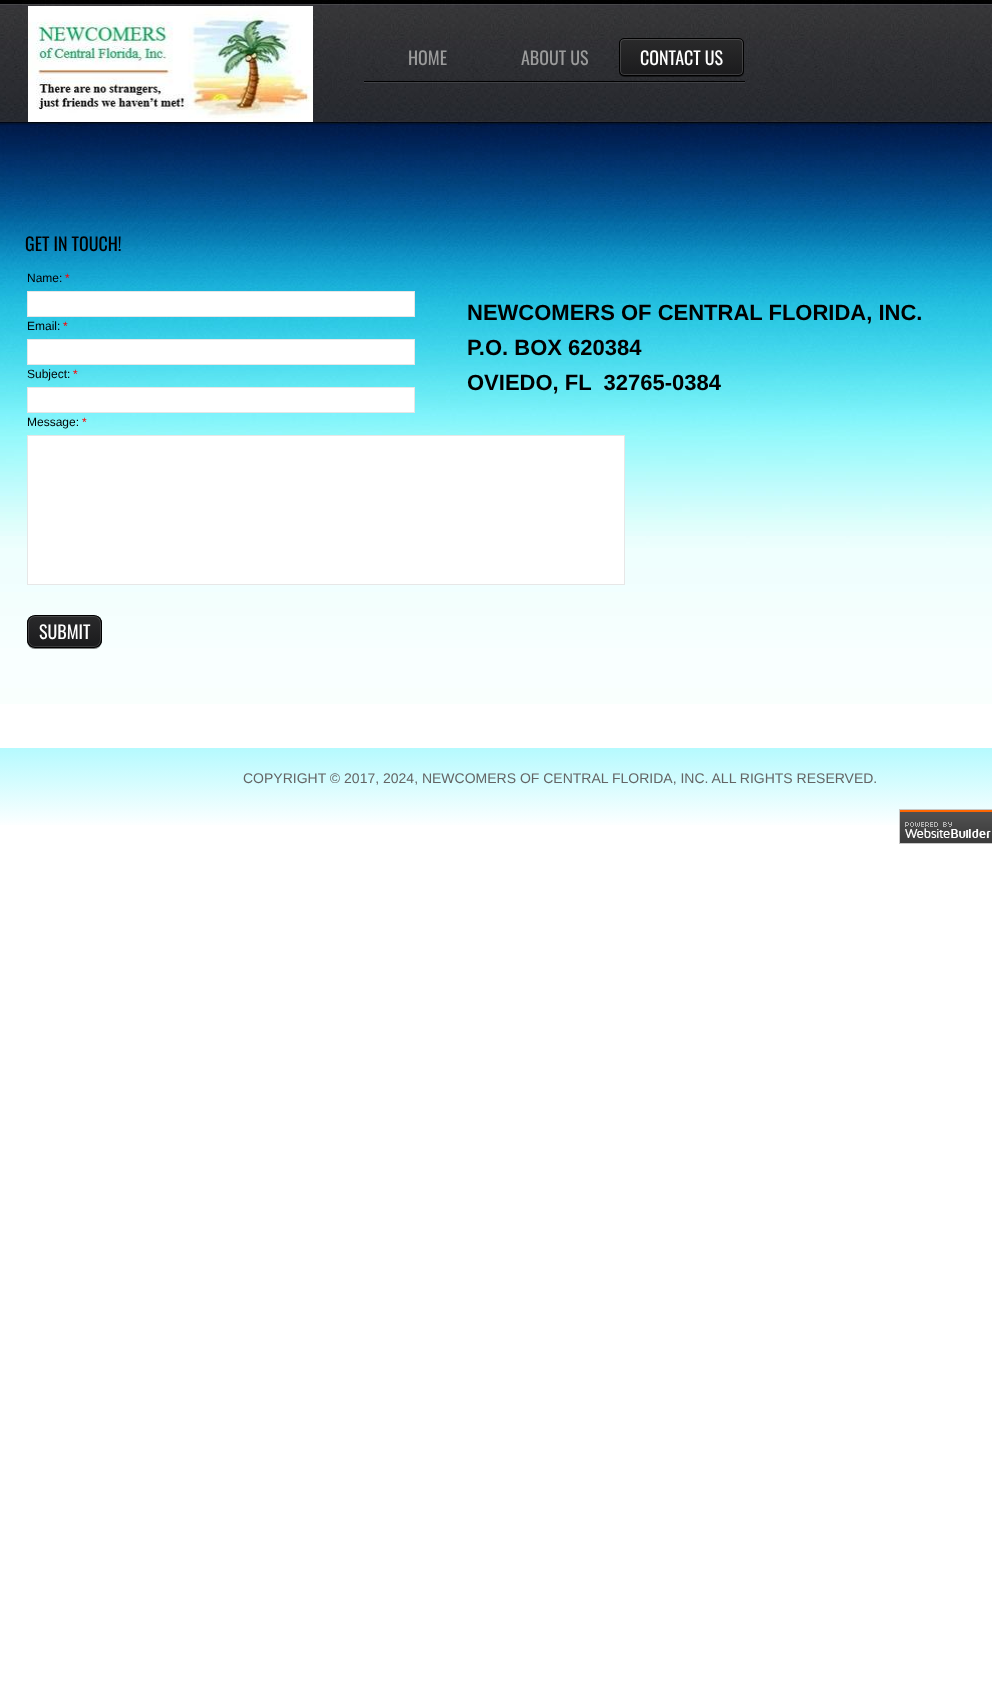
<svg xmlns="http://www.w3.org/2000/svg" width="992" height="1696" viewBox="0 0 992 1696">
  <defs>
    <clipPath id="clip1"><rect x="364" y="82" width="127" height="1"/></clipPath>
    <clipPath id="clip2"><rect x="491" y="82" width="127" height="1"/></clipPath>
    <clipPath id="clip3"><rect x="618" y="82" width="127" height="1"/></clipPath>
    <clipPath id="clip4"><rect x="619" y="38" width="125" height="38" rx="5"/></clipPath>
    <linearGradient id="g1" gradientUnits="userSpaceOnUse" x1="682" y1="39" x2="682" y2="75"><stop offset="0" stop-color="rgb(42,42,43)"/><stop offset="1" stop-color="rgb(27,27,29)"/></linearGradient>
    <clipPath id="clip5"><rect x="27" y="615" width="75" height="33" rx="8"/></clipPath>
    <linearGradient id="g2" gradientUnits="userSpaceOnUse" x1="65" y1="616" x2="65" y2="647"><stop offset="0" stop-color="rgb(42,42,43)"/><stop offset="1" stop-color="rgb(27,27,29)"/></linearGradient>
    <linearGradient id="g3" gradientUnits="userSpaceOnUse" x1="496" y1="748" x2="496" y2="848"><stop offset="0" stop-color="rgb(181,250,254)"/><stop offset="0.8" stop-color="rgb(255,255,255)"/></linearGradient>
  </defs>
  <rect width="100%" height="100%" fill="rgb(255,255,255)"/>
  <image x="0" y="0" width="992" height="704" href="pic1.png"/>
  <image x="28" y="6" width="285" height="116" href="pic2.png"/>
  <g clip-path="url(#clip1)">
    <rect x="364" y="38" width="127" height="45" fill="rgba(255,255,255,0.1)" filter="blur(0.5px)"/>
  </g>
  <rect x="364" y="81" width="127" height="1" fill="rgb(0,0,0)"/>
  <text x="408" y="65" font-family="Oswald" font-size="18" fill="rgb(155,155,155)">HOME</text>
  <g clip-path="url(#clip2)">
    <rect x="491" y="38" width="127" height="45" fill="rgba(255,255,255,0.1)" filter="blur(0.5px)"/>
  </g>
  <rect x="491" y="81" width="127" height="1" fill="rgb(0,0,0)"/>
  <text x="521" y="65" font-family="Oswald" font-size="18" fill="rgb(155,155,155)">ABOUT US</text>
  <g clip-path="url(#clip3)">
    <rect x="618" y="38" width="127" height="45" fill="rgba(255,255,255,0.1)" filter="blur(0.5px)"/>
  </g>
  <rect x="618" y="81" width="127" height="1" fill="rgb(0,0,0)"/>
  <rect x="619" y="39" width="125" height="38" rx="5" fill="rgba(0,0,0,0.5)" filter="blur(0.5px)"/>
  <g clip-path="url(#clip4)">
    <rect x="619" y="39" width="125" height="36" fill="url(#g1)"/>
  </g>
  <rect x="620.5" y="39.5" width="122" height="35" rx="3.5" fill="none" stroke="rgba(255,255,255,0.15)"/>
  <rect x="619.5" y="38.5" width="124" height="37" rx="4.5" fill="none" stroke="rgb(0,0,0)"/>
  <text x="640" y="65" font-family="Oswald" font-size="18" fill="rgb(255,255,255)">CONTACT US</text>
  <text x="25" y="251" font-family="Oswald" font-size="18" fill="rgb(0,0,0)">GET IN TOUCH!</text>
  <text x="27" y="282" font-family="Liberation Sans" font-size="12" fill="rgb(0,0,0)">Name:</text>
  <text x="65" y="282" font-family="Liberation Sans" font-size="12" fill="rgb(255,0,0)">*</text>
  <rect x="27.5" y="291.5" width="387" height="25" fill="rgb(255,255,255)" stroke="rgb(231,231,231)"/>
  <text x="27" y="330" font-family="Liberation Sans" font-size="12" fill="rgb(0,0,0)">Email:</text>
  <text x="63" y="330" font-family="Liberation Sans" font-size="12" fill="rgb(255,0,0)">*</text>
  <rect x="27.5" y="339.5" width="387" height="25" fill="rgb(255,255,255)" stroke="rgb(231,231,231)"/>
  <text x="27" y="378" font-family="Liberation Sans" font-size="12" fill="rgb(0,0,0)">Subject:</text>
  <text x="73" y="378" font-family="Liberation Sans" font-size="12" fill="rgb(255,0,0)">*</text>
  <rect x="27.5" y="387.5" width="387" height="25" fill="rgb(255,255,255)" stroke="rgb(231,231,231)"/>
  <text x="27" y="426" font-family="Liberation Sans" font-size="12" fill="rgb(0,0,0)">Message:</text>
  <text x="82" y="426" font-family="Liberation Sans" font-size="12" fill="rgb(255,0,0)">*</text>
  <rect x="27.5" y="435.5" width="597" height="149" fill="rgb(255,255,255)" stroke="rgb(231,231,231)"/>
  <rect x="27" y="616" width="75" height="33" rx="8" fill="rgba(0,0,0,0.5)" filter="blur(0.5px)"/>
  <g clip-path="url(#clip5)">
    <rect x="27" y="616" width="75" height="31" fill="url(#g2)"/>
  </g>
  <rect x="28.5" y="616.5" width="72" height="30" rx="6.5" fill="none" stroke="rgba(255,255,255,0.15)"/>
  <rect x="27.5" y="615.5" width="74" height="32" rx="7.5" fill="none" stroke="rgb(0,0,0)"/>
  <text x="39" y="639" font-family="Oswald" font-size="18" fill="rgb(255,255,255)">SUBMIT</text>
  <g font-family="Liberation Sans" font-size="22" font-weight="bold" fill="rgb(0,0,0)">
    <text xml:space="preserve"><tspan x="467" y="320">NEWCOMERS OF CENTRAL FLORIDA, INC.</tspan><tspan x="467" y="355">P.O. BOX 620384</tspan><tspan x="467" y="390">OVIEDO, FL  32765-0384</tspan></text>
  </g>
  <rect x="0" y="748" width="992" height="77" fill="url(#g3)"/>
  <text x="243" y="783" font-family="Liberation Sans" font-size="14" fill="rgb(100,100,100)">COPYRIGHT © 2017, 2024, NEWCOMERS OF CENTRAL FLORIDA, INC. ALL RIGHTS RESERVED.</text>
  <image x="899" y="809" width="93" height="35" href="pic3.png"/>
</svg>
